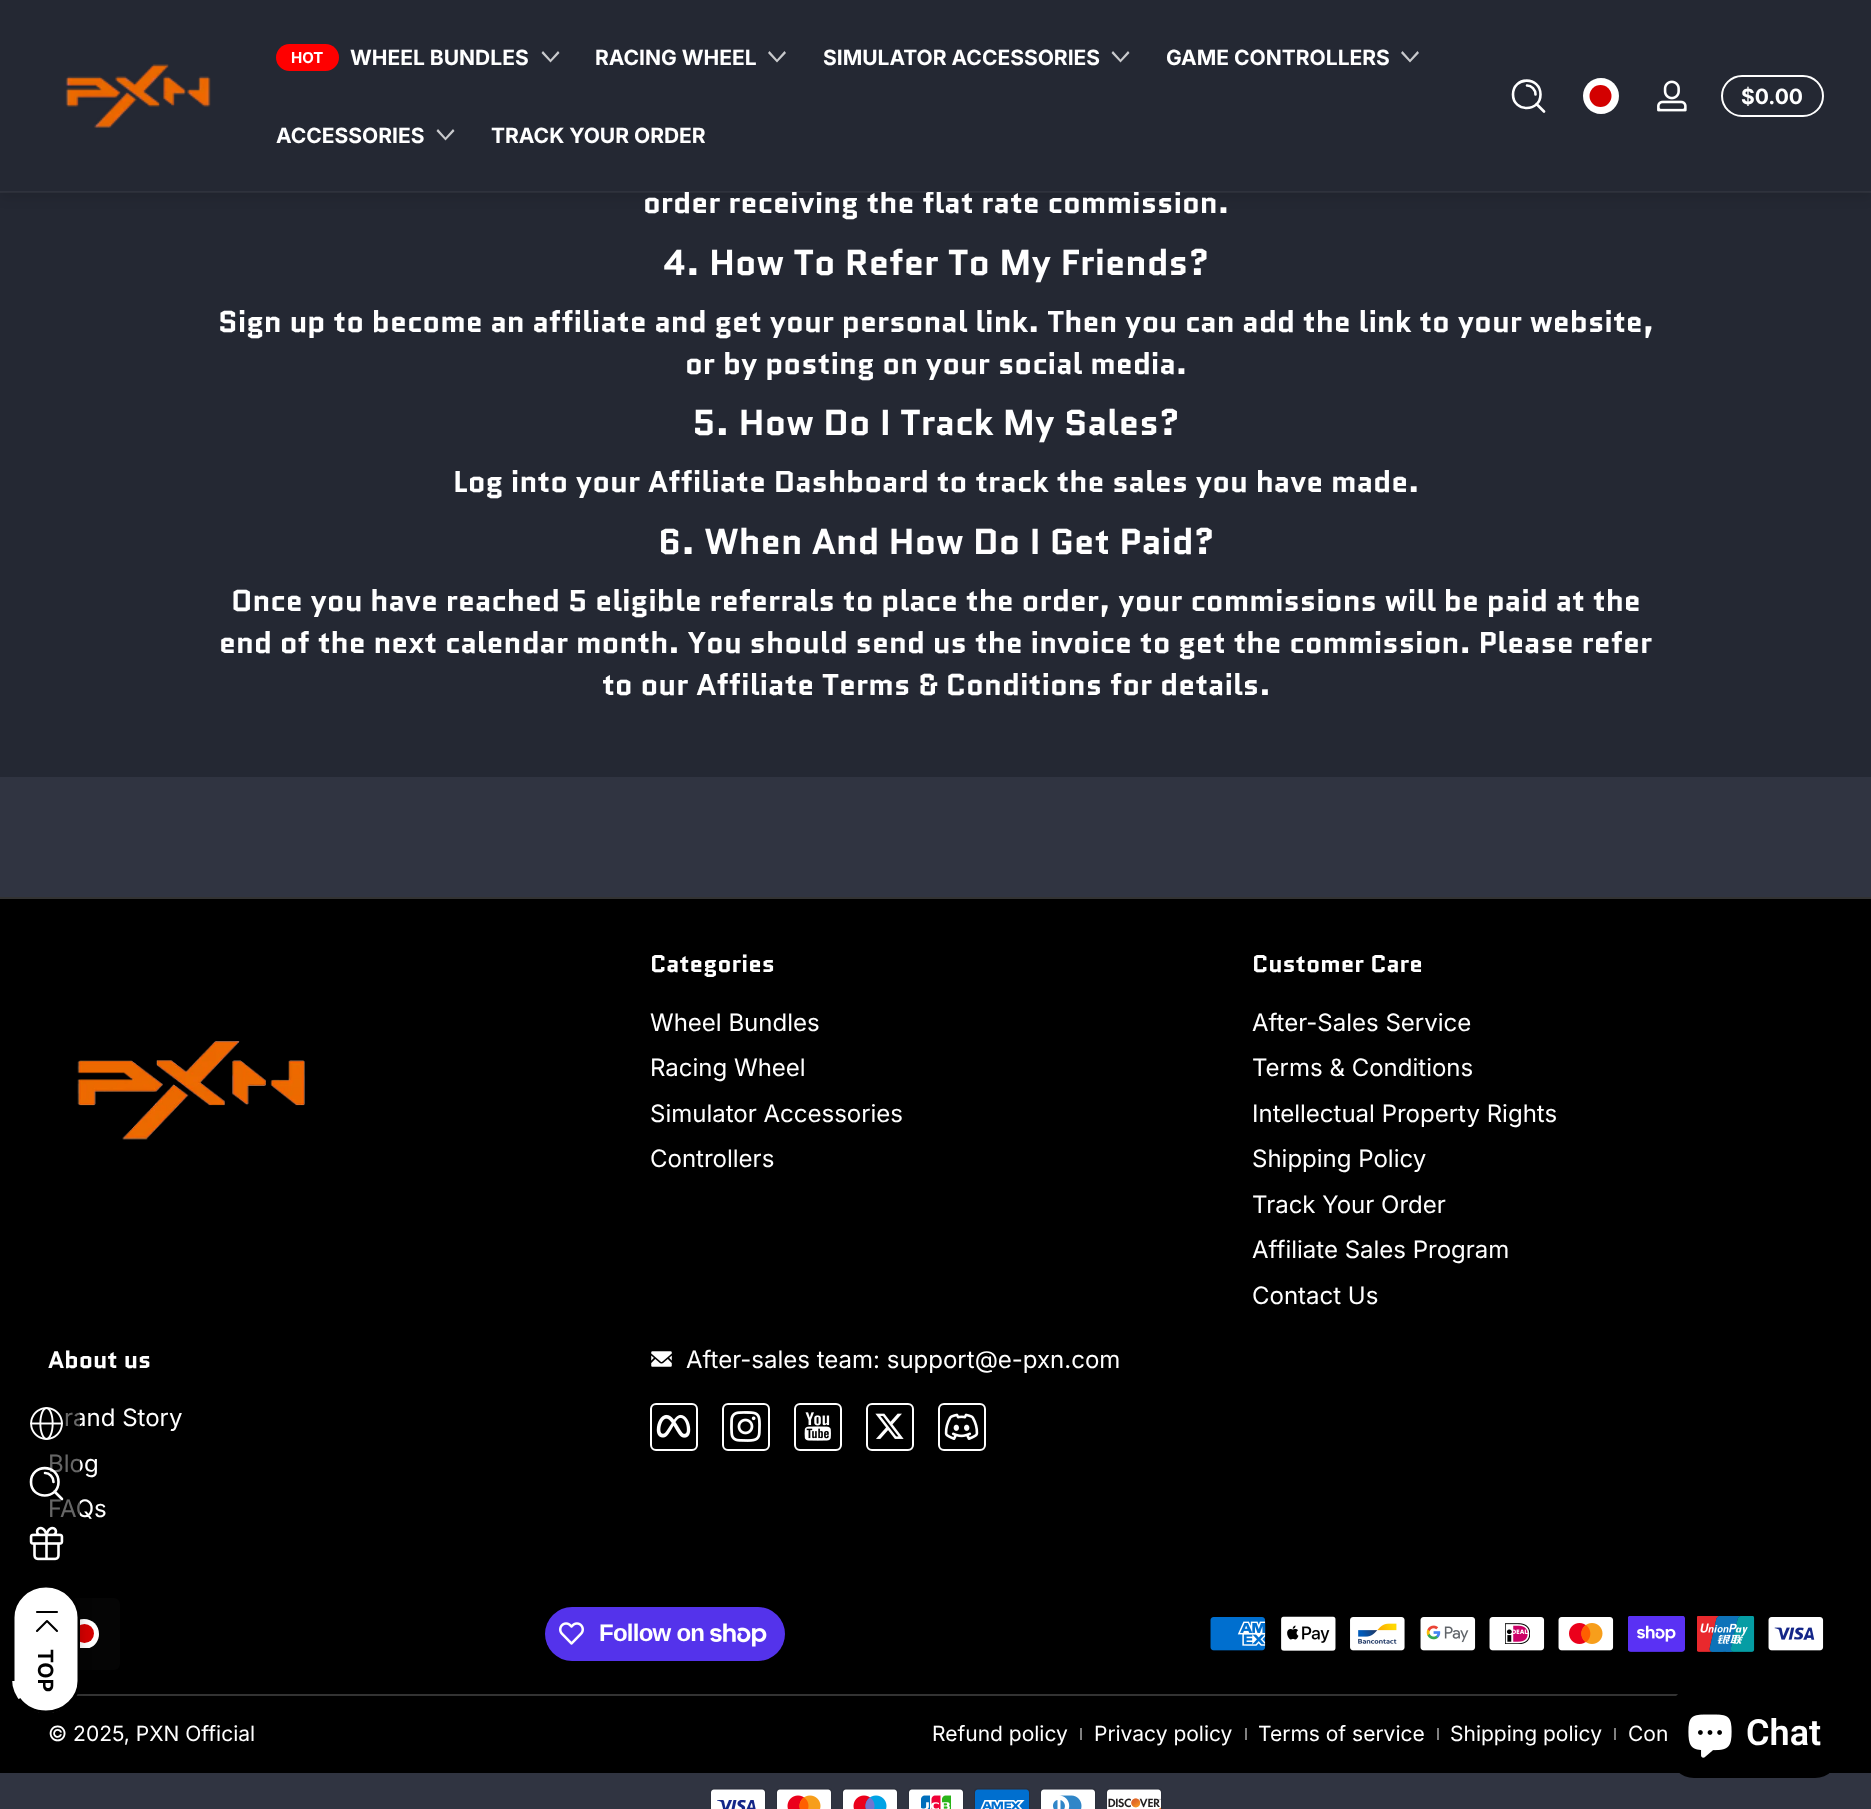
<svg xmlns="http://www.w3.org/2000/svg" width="1871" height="1809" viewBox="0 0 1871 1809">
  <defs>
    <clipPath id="clip1"><path d="M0 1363H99V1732H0ZM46 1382C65 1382 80 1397 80 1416V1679C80 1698 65 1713 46 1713C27 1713 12 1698 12 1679V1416C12 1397 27 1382 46 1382Z" clip-rule="evenodd"/></clipPath>
    <clipPath id="clip2"><rect x="12" y="1586" width="68" height="127"/></clipPath>
  </defs>
  <rect width="100%" height="100%" fill="rgb(48,52,65)"/>
  <rect x="0" y="192" width="1871" height="585" fill="rgb(36,40,51)"/>
  <rect x="0" y="6" width="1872" height="192" fill="rgba(0,0,0,0.1)" filter="blur(6px)"/>
  <text x="643" y="213" font-family="Quantico" font-size="30" font-weight="bold" fill="rgb(255,255,255)">order receiving the flat rate commission.</text>
  <rect x="0" y="0" width="1871" height="192" fill="rgb(36,40,51)"/>
  <image x="65" y="64" width="146" height="64" href="pic1.png"/>
  <rect x="276" y="44" width="63" height="27" rx="13.5" fill="rgb(255,0,0)"/>
  <text x="291" y="63" font-family="Inter" font-size="15" font-weight="bold" fill="rgb(255,255,255)">HOT</text>
  <text x="350" y="65" font-family="Inter" font-size="21" font-weight="bold" fill="rgb(255,255,255)">WHEEL BUNDLES</text>
  <path d="M550.5 59.5L558 51L559.5 53L550.5 62.5L541.5 53L543 51Z" fill="rgb(200,201,204)"/>
  <text x="595" y="65" font-family="Inter" font-size="21" font-weight="bold" fill="rgb(255,255,255)">RACING WHEEL</text>
  <path d="M777 59.5L784.5 51L786 53L777 62.5L768 53L769.5 51Z" fill="rgb(200,201,204)"/>
  <text x="823" y="65" font-family="Inter" font-size="21" font-weight="bold" fill="rgb(255,255,255)">SIMULATOR ACCESSORIES</text>
  <path d="M1120.5 59.5L1128 51L1129.5 53L1120.5 62.5L1111.5 53L1113 51Z" fill="rgb(200,201,204)"/>
  <text x="1166" y="65" font-family="Inter" font-size="21" font-weight="bold" fill="rgb(255,255,255)">GAME CONTROLLERS</text>
  <path d="M1410 59.5L1417.5 51L1419 53L1410 62.5L1401 53L1402.5 51Z" fill="rgb(200,201,204)"/>
  <text x="276" y="143" font-family="Inter" font-size="21" font-weight="bold" fill="rgb(255,255,255)">ACCESSORIES</text>
  <path d="M445.5 137.5L453 129L454.5 131L445.5 140.5L436.5 131L438 129Z" fill="rgb(200,201,204)"/>
  <text x="491" y="143" font-family="Inter" font-size="21" font-weight="bold" fill="rgb(255,255,255)">TRACK YOUR ORDER</text>
  <path d="M1527 85.5C1531.5 85.5 1535.5 89.5 1535.5 94.5M1536.5 104L1544 111.5M1540.5 94.5C1540.5 112.5 1513 112.5 1513 94.5C1513 76 1540.5 76 1540.5 94.5Z" fill="none" stroke="rgb(255,255,255)" stroke-width="2.6" stroke-linecap="round" stroke-linejoin="round"/>
  <path d="M1601 78C1611 78 1619 86 1619 96C1619 106 1611 114 1601 114C1591 114 1583 106 1583 96C1583 86 1591 78 1601 78Z" fill="rgb(255,255,255)"/>
  <circle cx="1600.5" cy="96" r="11" fill="rgb(211,0,0)"/>
  <image x="1657" y="80" width="30" height="32" href="pic2.png"/>
  <rect x="1722" y="76" width="101" height="40" rx="20" fill="none" stroke="rgb(255,255,255)" stroke-width="2"/>
  <text x="1741" y="104" font-family="Inter" font-size="21" font-weight="bold" fill="rgb(255,255,255)">$0.00</text>
  <rect x="0" y="191" width="1871" height="2" fill="rgba(255,255,255,0.05)"/>
  <text x="663" y="275" font-family="Quantico" font-size="36" font-weight="bold" fill="rgb(255,255,255)">4. How To Refer To My Friends?</text>
  <g font-family="Quantico" font-size="30" font-weight="bold" fill="rgb(255,255,255)">
    <text x="218" y="332">Sign up to become an affiliate and get your personal link. Then you can add the link to your website,</text>
    <text x="685" y="374">or by posting on your social media.</text>
  </g>
  <text x="692" y="435" font-family="Quantico" font-size="36" font-weight="bold" fill="rgb(255,255,255)">5. How Do I Track My Sales?</text>
  <text x="453" y="492" font-family="Quantico" font-size="30" font-weight="bold" fill="rgb(255,255,255)">Log into your Affiliate Dashboard to track the sales you have made.</text>
  <text x="658" y="554" font-family="Quantico" font-size="36" font-weight="bold" fill="rgb(255,255,255)">6. When And How Do I Get Paid?</text>
  <g font-family="Quantico" font-size="30" font-weight="bold" fill="rgb(255,255,255)">
    <text x="231" y="611">Once you have reached 5 eligible referrals to place the order, your commissions will be paid at the</text>
    <text x="219" y="653">end of the next calendar month. You should send us the invoice to get the commission. Please refer</text>
    <text x="602" y="695">to our Affiliate Terms &amp; Conditions for details.</text>
  </g>
  <rect x="0" y="899" width="1871" height="874" fill="rgb(0,0,0)"/>
  <rect x="48" y="1598" width="72" height="72" rx="6" fill="rgb(5,5,5)"/>
  <path d="M84 1619C92.5 1619 99 1625.5 99 1634C99 1640.5 95 1646 89.5 1648H78.5C73 1646 69 1640.5 69 1634C69 1625.5 75.5 1619 84 1619Z" fill="rgb(255,255,255)"/>
  <circle cx="84.5" cy="1633.5" r="9.5" fill="rgb(211,0,0)"/>
  <rect x="76" y="1694" width="1603" height="2" fill="rgb(51,51,51)"/>
  <g clip-path="url(#clip1)">
    <rect x="12" y="1382" width="68" height="331" rx="34" fill="rgba(0,0,0,0.2)" filter="blur(6px)"/>
  </g>
  <g font-family="Inter" font-size="24" fill="rgb(255,255,255)">
    <text x="64" y="1426">rand Story</text>
    <text>
      <tspan x="48" y="1472">Blog</tspan>
      <tspan x="48" y="1517">FAQs</tspan>
    </text>
  </g>
  <rect x="12" y="1382" width="68" height="331" rx="34" fill="rgba(0,0,0,0.6)"/>
  <image x="30" y="1407" width="33" height="33" href="pic3.png"/>
  <path d="M45 1473C49.5 1473 53.5 1477 53.5 1482M54.5 1491.5L62 1499M58.5 1482C58.5 1500 31 1500 31 1482C31 1463.5 58.5 1463.5 58.5 1482Z" fill="none" stroke="rgb(255,255,255)" stroke-width="2.6" stroke-linecap="round" stroke-linejoin="round"/>
  <image x="29" y="1526" width="35" height="35" href="pic4.png"/>
  <rect x="12" y="1586" width="68" height="127" rx="34" fill="rgb(255,255,255)"/>
  <path d="M37 1631L47 1621L57 1631M37 1612H57" fill="none" stroke="rgb(0,0,0)" stroke-width="2.1" stroke-linecap="round" stroke-linejoin="round"/>
  <g clip-path="url(#clip2)">
    <path d="M13 1681V1617.5C13 1600.5 27.5 1586 46 1586C64 1586 79 1600.5 79 1617.5V1681C79 1698 64 1712 46 1712C34.5 1712 25 1707 19 1699" fill="none" stroke="rgb(0,0,0)" stroke-width="3"/>
  </g>
  <text x="38" y="1649" transform="rotate(90 38 1649)" font-family="Inter" font-size="21" font-weight="bold" fill="rgb(0,0,0)">TOP</text>
  <rect x="0" y="897" width="1871" height="2" fill="rgb(51,51,51)"/>
  <image x="77" y="1041" width="228" height="99" href="pic5.png"/>
  <text x="650" y="972" font-family="Quantico" font-size="24" font-weight="bold" fill="rgb(255,255,255)">Categories</text>
  <g font-family="Inter" font-size="24" fill="rgb(255,255,255)">
    <text>
      <tspan x="650" y="1031">Wheel Bundles</tspan>
      <tspan x="650" y="1076">Racing Wheel</tspan>
      <tspan x="650" y="1122">Simulator Accessories</tspan>
      <tspan x="650" y="1167">Controllers</tspan>
    </text>
  </g>
  <text x="1252" y="972" font-family="Quantico" font-size="24" font-weight="bold" fill="rgb(255,255,255)">Customer Care</text>
  <g font-family="Inter" font-size="24" fill="rgb(255,255,255)">
    <text>
      <tspan x="1252" y="1031">After-Sales Service</tspan>
      <tspan x="1252" y="1076">Terms &amp; Conditions</tspan>
      <tspan x="1252" y="1122">Intellectual Property Rights</tspan>
      <tspan x="1252" y="1167">Shipping Policy</tspan>
      <tspan x="1252" y="1213">Track Your Order</tspan>
      <tspan x="1252" y="1258">Affiliate Sales Program</tspan>
      <tspan x="1252" y="1304">Contact Us</tspan>
    </text>
  </g>
  <text x="48" y="1368" font-family="Quantico" font-size="24" font-weight="bold" fill="rgb(255,255,255)">About us</text>
  <image x="651" y="1351" width="21" height="16" href="pic6.png"/>
  <text x="686" y="1368" font-family="Inter" font-size="24" fill="rgb(255,255,255)">After-sales team: support@e-pxn.com</text>
  <image x="656" y="1414" width="35" height="24" href="pic7.png"/>
  <rect x="651" y="1404" width="46" height="46" rx="5" fill="none" stroke="rgb(255,255,255)" stroke-width="2"/>
  <image x="730" y="1411" width="31" height="31" href="pic8.png"/>
  <rect x="723" y="1404" width="46" height="46" rx="5" fill="none" stroke="rgb(255,255,255)" stroke-width="2"/>
  <image x="804" y="1412" width="27" height="29" href="pic9.png"/>
  <rect x="795" y="1404" width="46" height="46" rx="5" fill="none" stroke="rgb(255,255,255)" stroke-width="2"/>
  <image x="875" y="1413" width="29" height="26" href="pic10.png"/>
  <rect x="867" y="1404" width="46" height="46" rx="5" fill="none" stroke="rgb(255,255,255)" stroke-width="2"/>
  <image x="944" y="1413" width="35" height="27" href="pic11.png"/>
  <rect x="939" y="1404" width="46" height="46" rx="5" fill="none" stroke="rgb(255,255,255)" stroke-width="2"/>
  <rect x="545" y="1607" width="240" height="54" rx="27" fill="rgb(84,51,235)"/>
  <image x="559" y="1622" width="25" height="23" href="pic12.png"/>
  <text x="599" y="1641" font-family="Liberation Sans" font-size="24" font-weight="bold" letter-spacing="-0.75" fill="rgb(255,255,255)">Follow on</text>
  <image x="710" y="1623" width="57" height="24" href="pic13.png"/>
  <image x="1210" y="1617" width="56" height="34" href="pic14.png"/>
  <image x="1281" y="1616" width="55" height="35" href="pic15.png"/>
  <image x="1350" y="1617" width="55" height="34" href="pic16.png"/>
  <image x="1420" y="1617" width="56" height="34" href="pic17.png"/>
  <image x="1489" y="1617" width="56" height="34" href="pic18.png"/>
  <image x="1558" y="1617" width="56" height="34" href="pic19.png"/>
  <image x="1628" y="1616" width="57" height="36" href="pic20.png"/>
  <image x="1697" y="1616" width="58" height="36" href="pic21.png"/>
  <image x="1768" y="1617" width="56" height="34" href="pic22.png"/>
  <g font-family="Inter" font-size="21" fill="rgb(255,255,255)">
    <text x="48" y="1741">© 2025, PXN Official</text>
    <text x="932" y="1741">Refund policy</text>
  </g>
  <rect x="1080" y="1728" width="2" height="12" fill="rgb(128,128,128)"/>
  <text x="1094" y="1741" font-family="Inter" font-size="21" fill="rgb(255,255,255)">Privacy policy</text>
  <rect x="1245" y="1728" width="2" height="12" fill="rgb(128,128,128)"/>
  <text x="1258" y="1741" font-family="Inter" font-size="21" fill="rgb(255,255,255)">Terms of service</text>
  <rect x="1437" y="1728" width="2" height="12" fill="rgb(128,128,128)"/>
  <text x="1450" y="1741" font-family="Inter" font-size="21" fill="rgb(255,255,255)">Shipping policy</text>
  <rect x="1614" y="1728" width="2" height="12" fill="rgb(128,128,128)"/>
  <text x="1628" y="1741" font-family="Inter" font-size="21" fill="rgb(255,255,255)">Con</text>
  <image x="710" y="1788" width="56" height="21" href="pic23.png"/>
  <image x="776" y="1788" width="56" height="21" href="pic24.png"/>
  <image x="842" y="1788" width="56" height="21" href="pic25.png"/>
  <image x="908" y="1788" width="56" height="21" href="pic26.png"/>
  <image x="974" y="1788" width="56" height="21" href="pic27.png"/>
  <image x="1040" y="1788" width="56" height="21" href="pic28.png"/>
  <image x="1106" y="1788" width="56" height="21" href="pic29.png"/>
  <rect x="1670" y="1688" width="169" height="90" rx="24" fill="rgb(0,0,0)"/>
  <image x="1688" y="1714" width="44" height="44" href="pic30.png"/>
  <text x="1746" y="1745" font-family="Roboto" font-size="36" font-weight="600" fill="rgb(255,255,255)">Chat</text>
</svg>
